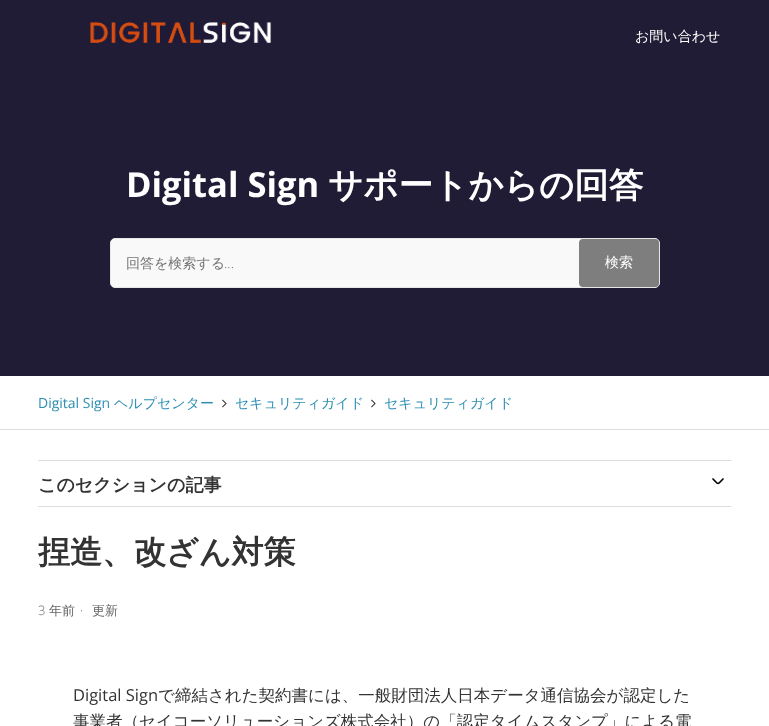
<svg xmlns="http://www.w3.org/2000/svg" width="769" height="726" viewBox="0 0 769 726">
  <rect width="100%" height="100%" fill="rgb(255,255,255)"/>
  <rect x="0" y="0" width="769" height="376" fill="rgb(33,28,54)"/>
  <image x="90" y="22" width="182" height="21" href="pic1.png"/>
  <text x="635" y="41" font-family="WenQuanYi Zen Hei" font-size="14" font-weight="500" fill="rgb(255,255,255)">お問い合わせ</text>
  <text x="126" y="197" font-family="Open Sans" font-size="34.5" font-weight="bold" fill="rgb(255,255,255)">Digital Sign</text>
  <text x="328" y="197" font-family="WenQuanYi Zen Hei" font-size="34.5" font-weight="bold" fill="rgb(255,255,255)">サポートからの回答</text>
  <rect x="110.5" y="238.5" width="549" height="49" rx="4.5" fill="rgb(249,249,249)" stroke="rgb(230,230,230)"/>
  <text x="126" y="268" font-family="WenQuanYi Zen Hei" font-size="14" font-weight="500" fill="rgb(117,117,117)">回答を検索する</text>
  <text x="224" y="268" font-family="Open Sans" font-size="14" font-weight="300" fill="rgb(117,117,117)">...</text>
  <rect x="579" y="239" width="80" height="48" rx="4" fill="rgb(126,126,126)"/>
  <text x="605" y="267" font-family="WenQuanYi Zen Hei" font-size="14" font-weight="500" fill="rgb(255,255,255)">検索</text>
  <rect x="0" y="429" width="769" height="1" fill="rgb(221,221,221)"/>
  <text x="38" y="408" font-family="Open Sans" font-size="14" fill="rgb(43,142,177)">Digital Sign</text>
  <text x="114" y="408" font-family="WenQuanYi Zen Hei" font-size="14" font-weight="500" fill="rgb(43,142,177)">ヘルプセンター</text>
  <image x="222" y="399" width="5" height="9" href="pic2.png"/>
  <text x="235" y="408" font-family="WenQuanYi Zen Hei" font-size="14" font-weight="500" fill="rgb(43,142,177)">セキュリティガイド</text>
  <image x="371" y="399" width="5" height="9" href="pic2.png"/>
  <text x="384" y="408" font-family="WenQuanYi Zen Hei" font-size="14" font-weight="500" fill="rgb(43,142,177)">セキュリティガイド</text>
  <rect x="38" y="460" width="693" height="1" fill="rgb(221,221,221)"/>
  <rect x="38" y="506" width="693" height="1" fill="rgb(221,221,221)"/>
  <text x="38" y="491" font-family="WenQuanYi Zen Hei" font-size="18" font-weight="bold" fill="rgb(51,51,51)">このセクションの記事</text>
  <path d="M713 479C719 485 717 485 723 479" fill="none" stroke="rgb(0,0,0)" stroke-width="1.7" stroke-linecap="round"/>
  <text x="38" y="563" font-family="WenQuanYi Zen Hei" font-size="32" font-weight="bold" fill="rgb(51,51,51)">捏造、改ざん対策</text>
  <text x="38" y="615" font-family="Open Sans" font-size="13" font-weight="300" fill="rgb(102,102,102)">3</text>
  <text x="49" y="615" font-family="WenQuanYi Zen Hei" font-size="13" font-weight="500" fill="rgb(102,102,102)">年前</text>
  <text x="80" y="615" font-family="Open Sans" font-size="13" font-weight="300" fill="rgb(102,102,102)">·</text>
  <text x="92" y="615" font-family="WenQuanYi Zen Hei" font-size="13" font-weight="500" fill="rgb(102,102,102)">更新</text>
  <text x="73" y="701" font-family="Open Sans" font-size="16.5" fill="rgb(51,51,51)">Digital Sign</text>
  <g font-family="WenQuanYi Zen Hei" font-size="16.5" font-weight="500" fill="rgb(51,51,51)">
    <text x="158" y="701">で締結された契約書には、一般財団法人日本データ通信協会が認定した</text>
    <text x="73" y="727">事業者（セイコーソリューションズ株式会社）の「認定タイムスタンプ」による電</text>
  </g>
</svg>
